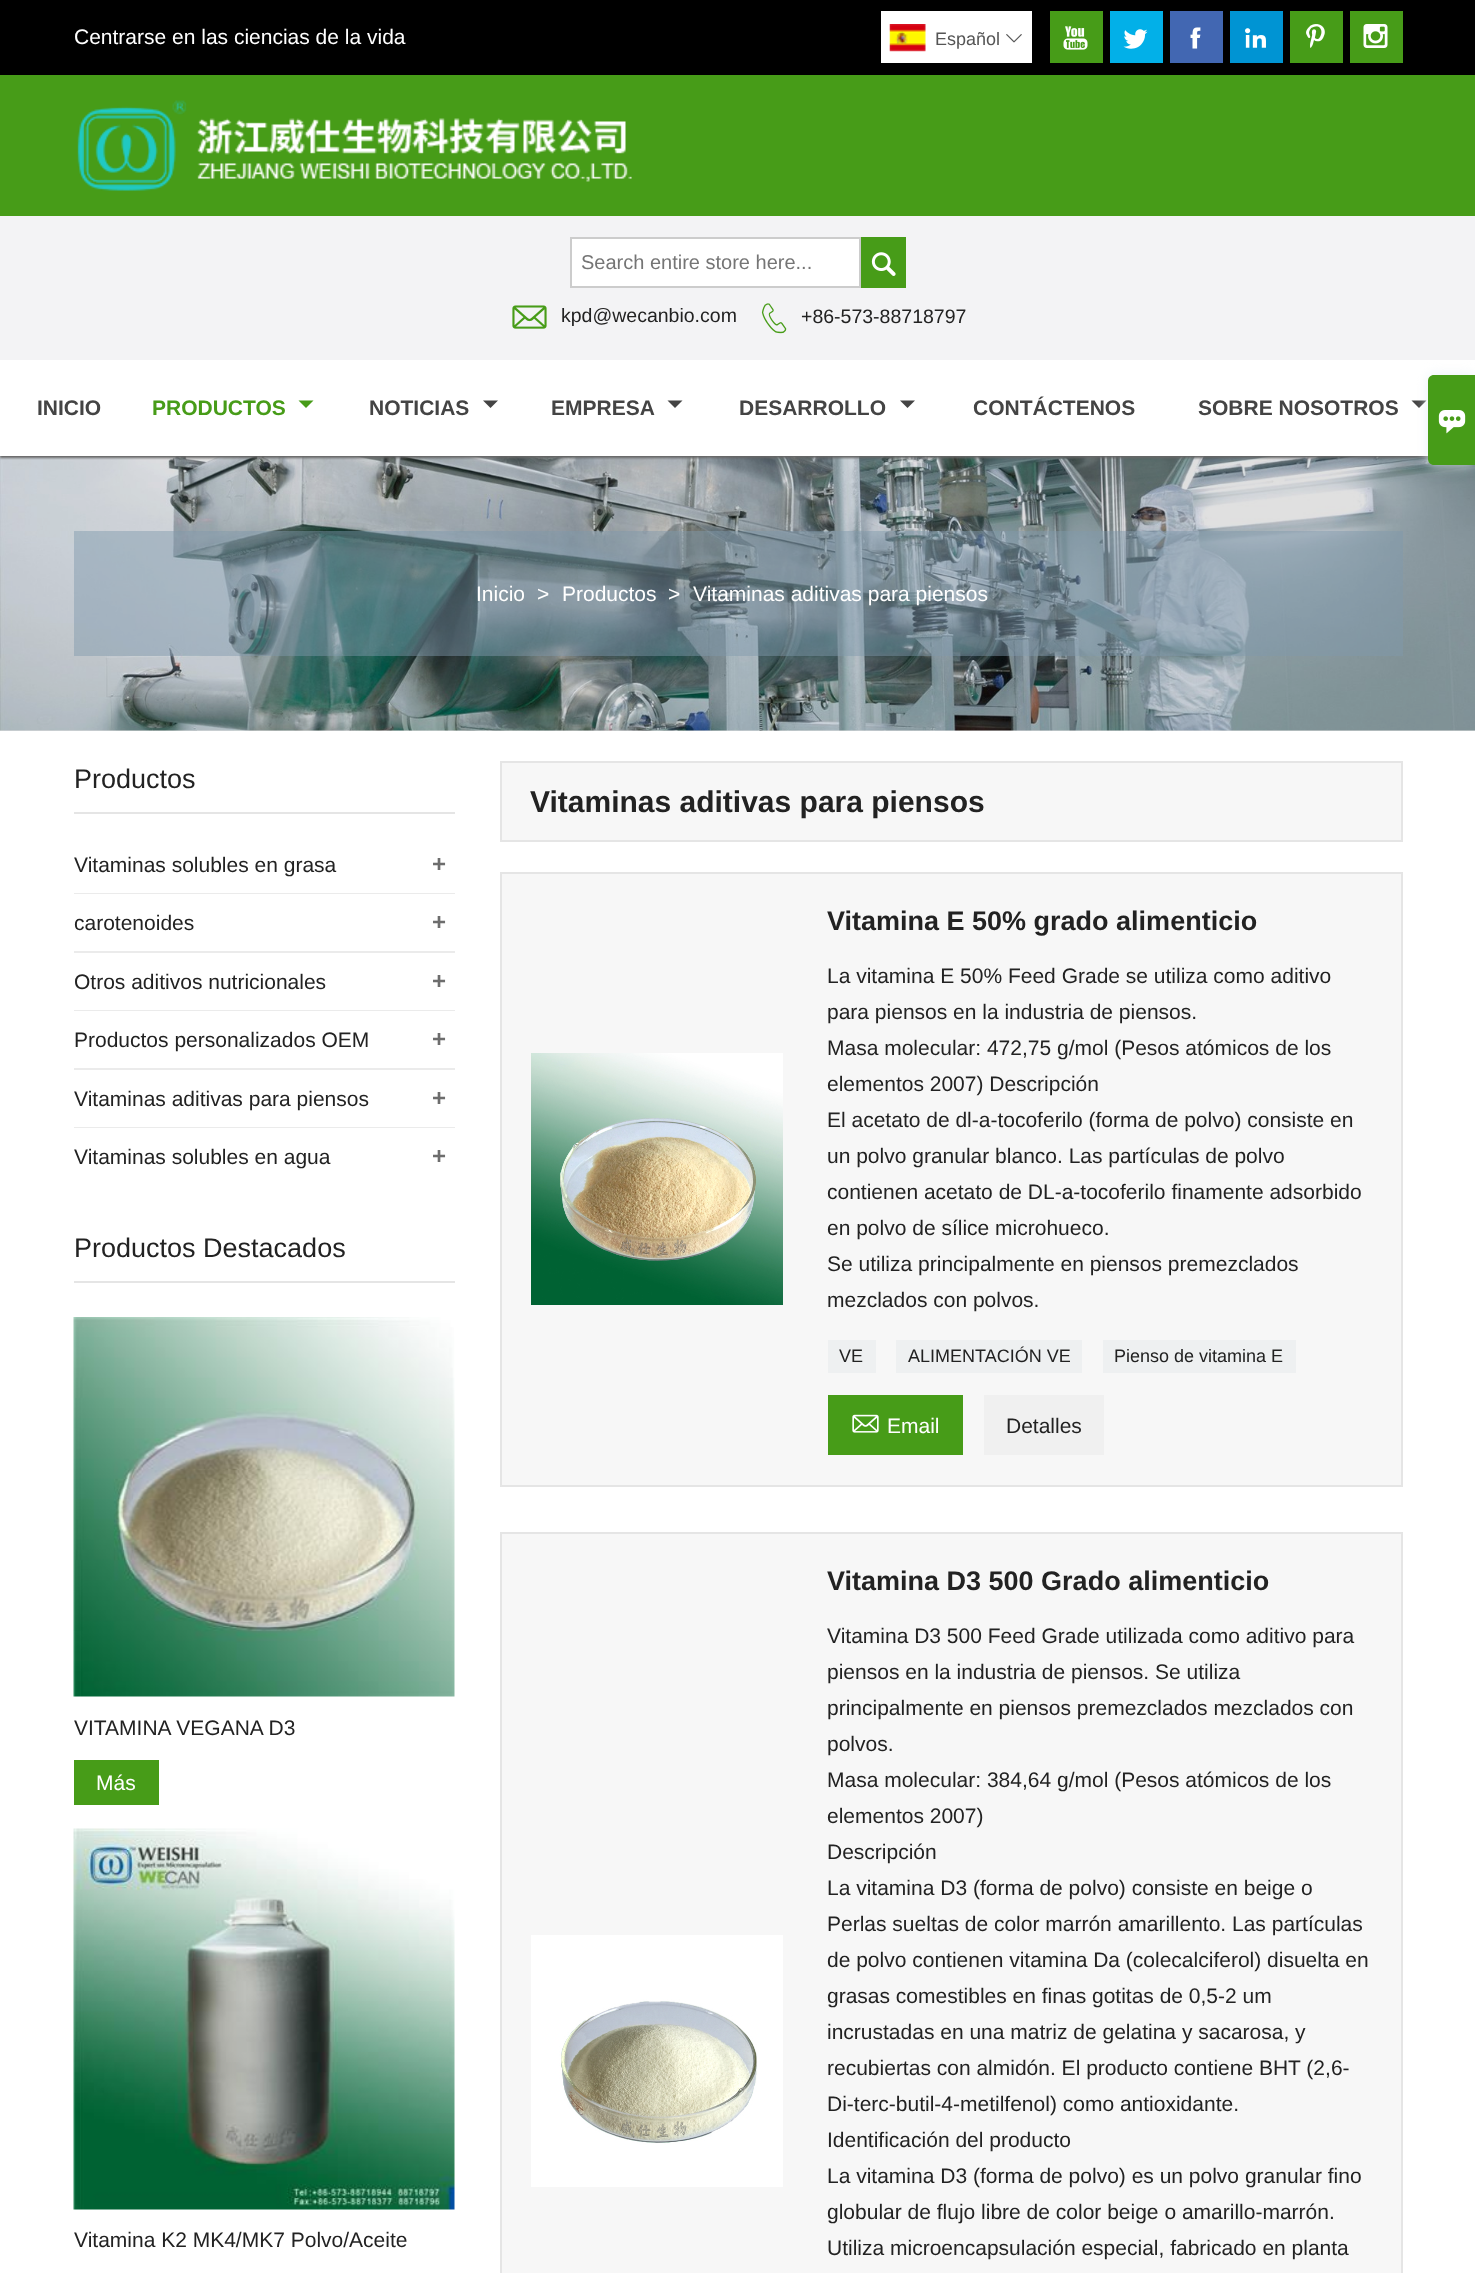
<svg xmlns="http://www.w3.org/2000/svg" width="1475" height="2273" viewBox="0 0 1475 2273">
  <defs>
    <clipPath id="clip1"><rect x="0" y="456" width="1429" height="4"/></clipPath>
  </defs>
  <rect width="100%" height="100%" fill="rgb(255,255,255)"/>
  <rect x="0" y="730" width="1475" height="1" fill="rgb(224,224,224)"/>
  <rect x="0" y="0" width="1475" height="75" fill="rgb(0,0,0)"/>
  <text x="74" y="44" font-family="Liberation Sans" font-size="21" fill="rgb(255,255,255)">Centrarse en las ciencias de la vida</text>
  <rect x="881" y="11" width="151" height="52" fill="rgb(255,255,255)"/>
  <image x="889" y="24" width="37" height="28" href="pic1.png"/>
  <text x="935" y="45" font-family="Liberation Sans" font-size="18" fill="rgb(85,85,85)">Español</text>
  <image x="1006" y="34" width="16" height="9" href="pic2.png"/>
  <rect x="1050" y="11" width="53" height="52" fill="rgb(71,156,24)"/>
  <image x="1063" y="26" width="25" height="24" href="pic3.png"/>
  <rect x="1110" y="11" width="53" height="52" fill="rgb(2,176,232)"/>
  <image x="1123" y="29" width="25" height="20" href="pic4.png"/>
  <rect x="1170" y="11" width="53" height="52" fill="rgb(66,103,178)"/>
  <image x="1190" y="27" width="11" height="22" href="pic5.png"/>
  <rect x="1230" y="11" width="53" height="52" fill="rgb(0,148,211)"/>
  <image x="1245" y="28" width="21" height="20" href="pic6.png"/>
  <rect x="1290" y="11" width="53" height="52" fill="rgb(71,156,24)"/>
  <image x="1306" y="24" width="19" height="24" href="pic7.png"/>
  <rect x="1350" y="11" width="53" height="52" fill="rgb(71,156,24)"/>
  <image x="1363" y="24" width="25" height="24" href="pic8.png"/>
  <image x="0" y="456" width="1475" height="275" href="pic13.png"/>
  <g clip-path="url(#clip1)">
    <rect x="0" y="362" width="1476" height="96" fill="rgb(102,102,102)" filter="blur(1px)"/>
  </g>
  <rect x="0" y="216" width="1475" height="144" fill="rgb(243,243,245)"/>
  <rect x="0" y="75" width="1475" height="141" fill="rgb(71,156,24)"/>
  <image x="77" y="100" width="555" height="91" href="pic9.png"/>
  <rect x="571" y="238" width="289" height="49" fill="rgb(255,255,255)" stroke="rgb(204,204,204)" stroke-width="2"/>
  <text x="581" y="269" font-family="Liberation Sans" font-size="20" fill="rgb(117,117,117)">Search entire store here...</text>
  <rect x="861" y="237" width="45" height="51" fill="rgb(71,156,24)"/>
  <image x="871" y="252" width="25" height="24" href="pic10.png"/>
  <image x="512" y="305" width="35" height="24" href="pic11.png"/>
  <text x="561" y="322" font-family="Liberation Sans" font-size="19.5" fill="rgb(34,34,34)">kpd@wecanbio.com</text>
  <image x="761" y="303" width="26" height="31" href="pic12.png"/>
  <text x="801" y="323" font-family="Liberation Sans" font-size="19.5" fill="rgb(34,34,34)">+86-573-88718797</text>
  <text x="37" y="415" font-family="Liberation Sans" font-size="21" font-weight="bold" fill="rgb(68,68,68)">INICIO</text>
  <text x="152" y="415" font-family="Liberation Sans" font-size="21" font-weight="bold" fill="rgb(71,156,24)">PRODUCTOS</text>
  <path d="M298.5 400.5H313.5L306 408Z" fill="rgb(71,156,24)"/>
  <text x="369" y="415" font-family="Liberation Sans" font-size="21" font-weight="bold" fill="rgb(68,68,68)">NOTICIAS</text>
  <path d="M483 400.5H498L490.5 408Z" fill="rgb(68,68,68)"/>
  <text x="551" y="415" font-family="Liberation Sans" font-size="21" font-weight="bold" fill="rgb(68,68,68)">EMPRESA</text>
  <path d="M667.5 400.5H682.5L675 408Z" fill="rgb(68,68,68)"/>
  <text x="739" y="415" font-family="Liberation Sans" font-size="21" font-weight="bold" fill="rgb(68,68,68)">DESARROLLO</text>
  <path d="M900 400.5H915L907.5 408Z" fill="rgb(68,68,68)"/>
  <g font-family="Liberation Sans" font-size="21" font-weight="bold" fill="rgb(68,68,68)">
    <text x="973" y="415">CONTÁCTENOS</text>
    <text x="1198" y="415">SOBRE NOSOTROS</text>
  </g>
  <path d="M1411.5 400.5H1426.5L1419 408Z" fill="rgb(68,68,68)"/>
  <rect x="74" y="531" width="1329" height="125" fill="rgba(127,152,173,0.47)"/>
  <g font-family="Liberation Sans" font-size="21" fill="rgb(255,255,255)">
    <text x="476" y="601">Inicio</text>
    <text x="537" y="601">&gt;</text>
    <text x="562" y="601">Productos</text>
    <text x="668" y="601">&gt;</text>
    <text x="693" y="601">Vitaminas aditivas para piensos</text>
  </g>
  <rect x="74" y="812" width="381" height="2" fill="rgb(229,229,229)"/>
  <text x="74" y="788" font-family="Liberation Sans" font-size="27" fill="rgb(34,34,34)">Productos</text>
  <rect x="74" y="893" width="381" height="1" fill="rgb(235,235,235)"/>
  <text x="74" y="872" font-family="Liberation Sans" font-size="21" fill="rgb(34,34,34)">Vitaminas solubles en grasa</text>
  <text x="432" y="872" font-family="Liberation Sans" font-size="24" font-weight="bold" fill="rgb(109,109,109)">+</text>
  <rect x="74" y="951" width="381" height="2" fill="rgb(235,235,235)"/>
  <text x="74" y="930" font-family="Liberation Sans" font-size="21" fill="rgb(34,34,34)">carotenoides</text>
  <text x="432" y="930" font-family="Liberation Sans" font-size="24" font-weight="bold" fill="rgb(109,109,109)">+</text>
  <rect x="74" y="1010" width="381" height="1" fill="rgb(235,235,235)"/>
  <text x="74" y="989" font-family="Liberation Sans" font-size="21" fill="rgb(34,34,34)">Otros aditivos nutricionales</text>
  <text x="432" y="989" font-family="Liberation Sans" font-size="24" font-weight="bold" fill="rgb(109,109,109)">+</text>
  <rect x="74" y="1068" width="381" height="2" fill="rgb(235,235,235)"/>
  <text x="74" y="1047" font-family="Liberation Sans" font-size="21" fill="rgb(34,34,34)">Productos personalizados OEM</text>
  <text x="432" y="1047" font-family="Liberation Sans" font-size="24" font-weight="bold" fill="rgb(109,109,109)">+</text>
  <rect x="74" y="1127" width="381" height="1" fill="rgb(235,235,235)"/>
  <text x="74" y="1106" font-family="Liberation Sans" font-size="21" fill="rgb(34,34,34)">Vitaminas aditivas para piensos</text>
  <text x="432" y="1106" font-family="Liberation Sans" font-size="24" font-weight="bold" fill="rgb(109,109,109)">+</text>
  <text x="74" y="1164" font-family="Liberation Sans" font-size="21" fill="rgb(34,34,34)">Vitaminas solubles en agua</text>
  <text x="432" y="1164" font-family="Liberation Sans" font-size="24" font-weight="bold" fill="rgb(109,109,109)">+</text>
  <rect x="74" y="1281" width="381" height="2" fill="rgb(229,229,229)"/>
  <text x="74" y="1257" font-family="Liberation Sans" font-size="27" fill="rgb(34,34,34)">Productos Destacados</text>
  <image x="73" y="1317" width="382" height="380" href="pic14.png"/>
  <text x="74" y="1735" font-family="Liberation Sans" font-size="21" fill="rgb(34,34,34)">VITAMINA VEGANA D3</text>
  <rect x="74" y="1760" width="85" height="45" fill="rgb(71,156,24)"/>
  <text x="96" y="1790" font-family="Liberation Sans" font-size="21" fill="rgb(255,255,255)">Más</text>
  <image x="73" y="1828" width="382" height="382" href="pic15.png"/>
  <text x="74" y="2247" font-family="Liberation Sans" font-size="21" fill="rgb(34,34,34)">Vitamina K2 MK4/MK7 Polvo/Aceite</text>
  <rect x="501" y="762" width="901" height="79" fill="rgb(247,247,247)" stroke="rgb(229,229,229)" stroke-width="2"/>
  <text x="530" y="812" font-family="Liberation Sans" font-size="30" font-weight="bold" fill="rgb(34,34,34)">Vitaminas aditivas para piensos</text>
  <rect x="501" y="873" width="901" height="613" fill="rgb(247,247,247)" stroke="rgb(229,229,229)" stroke-width="2"/>
  <image x="531" y="1053" width="252" height="252" href="pic16.png"/>
  <text x="827" y="930" font-family="Liberation Sans" font-size="27" font-weight="bold" fill="rgb(34,34,34)">Vitamina E 50% grado alimenticio</text>
  <g font-family="Liberation Sans" font-size="21" fill="rgb(34,34,34)">
    <text>
      <tspan x="827" y="983">La vitamina E 50% Feed Grade se utiliza como aditivo</tspan>
      <tspan x="827" y="1019">para piensos en la industria de piensos.</tspan>
      <tspan x="827" y="1055">Masa molecular: 472,75 g/mol (Pesos atómicos de los</tspan>
      <tspan x="827" y="1091">elementos 2007) Descripción</tspan>
      <tspan x="827" y="1127">El acetato de dl-a-tocoferilo (forma de polvo) consiste en</tspan>
      <tspan x="827" y="1163">un polvo granular blanco. Las partículas de polvo</tspan>
      <tspan x="827" y="1199">contienen acetato de DL-a-tocoferilo finamente adsorbido</tspan>
      <tspan x="827" y="1235">en polvo de sílice microhueco.</tspan>
      <tspan x="827" y="1271">Se utiliza principalmente en piensos premezclados</tspan>
      <tspan x="827" y="1307">mezclados con polvos.</tspan>
    </text>
  </g>
  <rect x="828" y="1340" width="48" height="33" fill="rgb(238,240,241)"/>
  <text x="839" y="1362" font-family="Liberation Sans" font-size="18" fill="rgb(34,34,34)">VE</text>
  <rect x="896" y="1340" width="186" height="33" fill="rgb(238,240,241)"/>
  <text x="908" y="1362" font-family="Liberation Sans" font-size="18" fill="rgb(34,34,34)">ALIMENTACIÓN VE</text>
  <rect x="1103" y="1340" width="193" height="33" fill="rgb(238,240,241)"/>
  <text x="1114" y="1362" font-family="Liberation Sans" font-size="18" fill="rgb(34,34,34)">Pienso de vitamina E</text>
  <rect x="828" y="1395" width="135" height="60" fill="rgb(71,156,24)"/>
  <image x="852" y="1414" width="27" height="19" href="pic17.png"/>
  <text x="887" y="1433" font-family="Liberation Sans" font-size="21" fill="rgb(255,255,255)">Email</text>
  <rect x="984" y="1395" width="120" height="60" fill="rgb(240,240,240)"/>
  <text x="1006" y="1433" font-family="Liberation Sans" font-size="21" fill="rgb(34,34,34)">Detalles</text>
  <rect x="501" y="1533" width="901" height="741" fill="rgb(247,247,247)" stroke="rgb(229,229,229)" stroke-width="2"/>
  <image x="531" y="1935" width="252" height="252" href="pic18.png"/>
  <text x="827" y="1590" font-family="Liberation Sans" font-size="27" font-weight="bold" fill="rgb(34,34,34)">Vitamina D3 500 Grado alimenticio</text>
  <g font-family="Liberation Sans" font-size="21" fill="rgb(34,34,34)">
    <text>
      <tspan x="827" y="1643">Vitamina D3 500 Feed Grade utilizada como aditivo para</tspan>
      <tspan x="827" y="1679">piensos en la industria de piensos. Se utiliza</tspan>
      <tspan x="827" y="1715">principalmente en piensos premezclados mezclados con</tspan>
      <tspan x="827" y="1751">polvos.</tspan>
      <tspan x="827" y="1787">Masa molecular: 384,64 g/mol (Pesos atómicos de los</tspan>
      <tspan x="827" y="1823">elementos 2007)</tspan>
      <tspan x="827" y="1859">Descripción</tspan>
      <tspan x="827" y="1895">La vitamina D3 (forma de polvo) consiste en beige o</tspan>
      <tspan x="827" y="1931">Perlas sueltas de color marrón amarillento. Las partículas</tspan>
      <tspan x="827" y="1967">de polvo contienen vitamina Da (colecalciferol) disuelta en</tspan>
      <tspan x="827" y="2003">grasas comestibles en finas gotitas de 0,5-2 um</tspan>
      <tspan x="827" y="2039">incrustadas en una matriz de gelatina y sacarosa, y</tspan>
      <tspan x="827" y="2075">recubiertas con almidón. El producto contiene BHT (2,6-</tspan>
      <tspan x="827" y="2111">Di-terc-butil-4-metilfenol) como antioxidante.</tspan>
      <tspan x="827" y="2147">Identificación del producto</tspan>
      <tspan x="827" y="2183">La vitamina D3 (forma de polvo) es un polvo granular fino</tspan>
      <tspan x="827" y="2219">globular de flujo libre de color beige o amarillo-marrón.</tspan>
      <tspan x="827" y="2255">Utiliza microencapsulación especial, fabricado en planta</tspan>
    </text>
  </g>
  <rect x="1428" y="375" width="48" height="90" rx="6" fill="rgb(234,240,246)" filter="blur(6px)"/>
  <path d="M1434 375H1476V465H1434C1430.5 465 1428 462.5 1428 459V381C1428 377.5 1430.5 375 1434 375Z" fill="rgb(71,156,24)"/>
  <image x="1438" y="410" width="28" height="24" href="pic19.png"/>
</svg>
